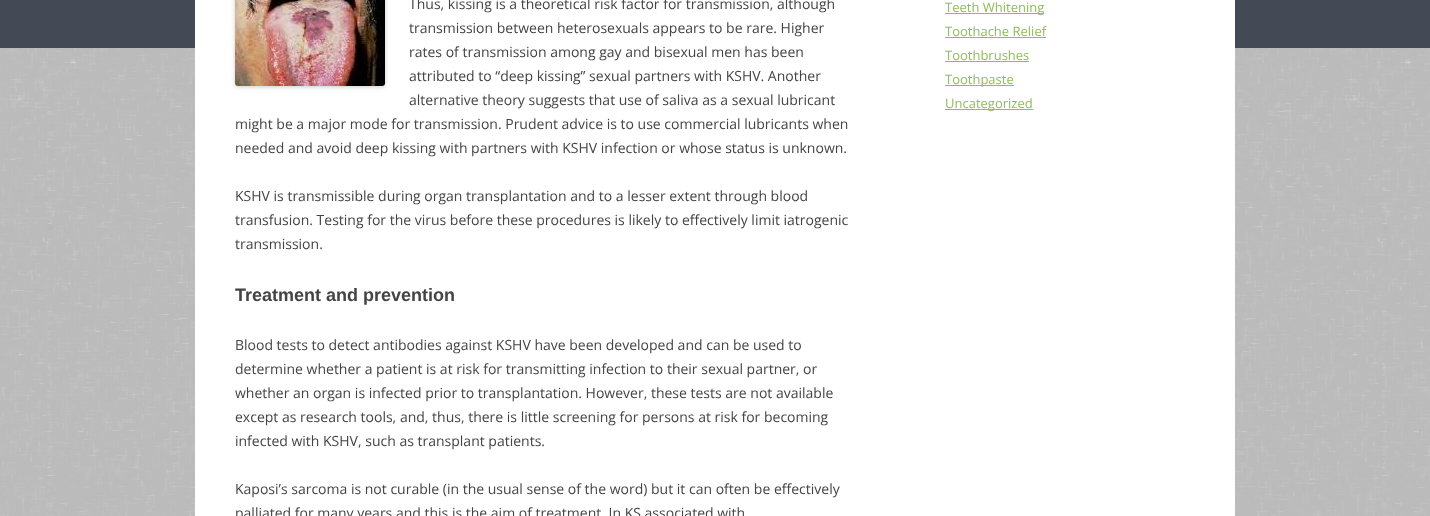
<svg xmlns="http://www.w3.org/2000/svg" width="1430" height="516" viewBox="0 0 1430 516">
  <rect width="100%" height="100%" fill="rgb(255,255,255)"/>
  <image x="0" y="0" width="1430" height="516" href="pic1.png"/>
  <rect x="195" y="0" width="1040" height="516" fill="rgb(255,255,255)"/>
  <rect x="235" y="-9" width="150" height="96" rx="3" fill="rgba(0,0,0,0.2)" filter="blur(2px)"/>
  <image x="235" y="0" width="150" height="86" href="pic2.png"/>
  <g font-family="Open Sans" font-size="14" fill="rgb(68,68,68)">
    <text>
      <tspan x="409" y="9">Thus, kissing is a theoretical risk factor for transmission, although</tspan>
      <tspan x="409" y="33">transmission between heterosexuals appears to be rare. Higher</tspan>
      <tspan x="409" y="57">rates of transmission among gay and bisexual men has been</tspan>
      <tspan x="409" y="81">attributed to “deep kissing” sexual partners with KSHV. Another</tspan>
      <tspan x="409" y="105">alternative theory suggests that use of saliva as a sexual lubricant</tspan>
    </text>
    <text>
      <tspan x="235" y="129">might be a major mode for transmission. Prudent advice is to use commercial lubricants when</tspan>
      <tspan x="235" y="153">needed and avoid deep kissing with partners with KSHV infection or whose status is unknown.</tspan>
    </text>
    <text>
      <tspan x="235" y="201">KSHV is transmissible during organ transplantation and to a lesser extent through blood</tspan>
      <tspan x="235" y="225">transfusion. Testing for the virus before these procedures is likely to effectively limit iatrogenic</tspan>
      <tspan x="235" y="249">transmission.</tspan>
    </text>
  </g>
  <text x="235" y="301" font-family="Liberation Sans" font-size="18" font-weight="bold" fill="rgb(68,68,68)">Treatment and prevention</text>
  <g font-family="Open Sans" font-size="14" fill="rgb(68,68,68)">
    <text>
      <tspan x="235" y="350">Blood tests to detect antibodies against KSHV have been developed and can be used to</tspan>
      <tspan x="235" y="374">determine whether a patient is at risk for transmitting infection to their sexual partner, or</tspan>
      <tspan x="235" y="398">whether an organ is infected prior to transplantation. However, these tests are not available</tspan>
      <tspan x="235" y="422">except as research tools, and, thus, there is little screening for persons at risk for becoming</tspan>
      <tspan x="235" y="446">infected with KSHV, such as transplant patients.</tspan>
    </text>
    <text>
      <tspan x="235" y="494">Kaposi’s sarcoma is not curable (in the usual sense of the word) but it can often be effectively</tspan>
      <tspan x="235" y="518">palliated for many years and this is the aim of treatment. In KS associated with</tspan>
    </text>
  </g>
  <rect x="945" y="13" width="99" height="1" fill="rgb(144,189,86)"/>
  <g font-family="Open Sans" font-size="13" fill="rgb(144,189,86)">
    <text>
      <tspan x="945" y="12">Teeth Whitening</tspan>
      <tspan x="945" y="36">Toothache Relief</tspan>
    </text>
  </g>
  <rect x="945" y="37" width="101" height="1" fill="rgb(144,189,86)"/>
  <text x="945" y="60" font-family="Open Sans" font-size="13" fill="rgb(144,189,86)">Toothbrushes</text>
  <rect x="945" y="61" width="84" height="1" fill="rgb(144,189,86)"/>
  <rect x="945" y="85" width="69" height="1" fill="rgb(144,189,86)"/>
  <text x="945" y="84" font-family="Open Sans" font-size="13" fill="rgb(144,189,86)">Toothpaste</text>
  <rect x="945" y="109" width="88" height="1" fill="rgb(144,189,86)"/>
  <text x="945" y="108" font-family="Open Sans" font-size="13" fill="rgb(144,189,86)">Uncategorized</text>
</svg>
